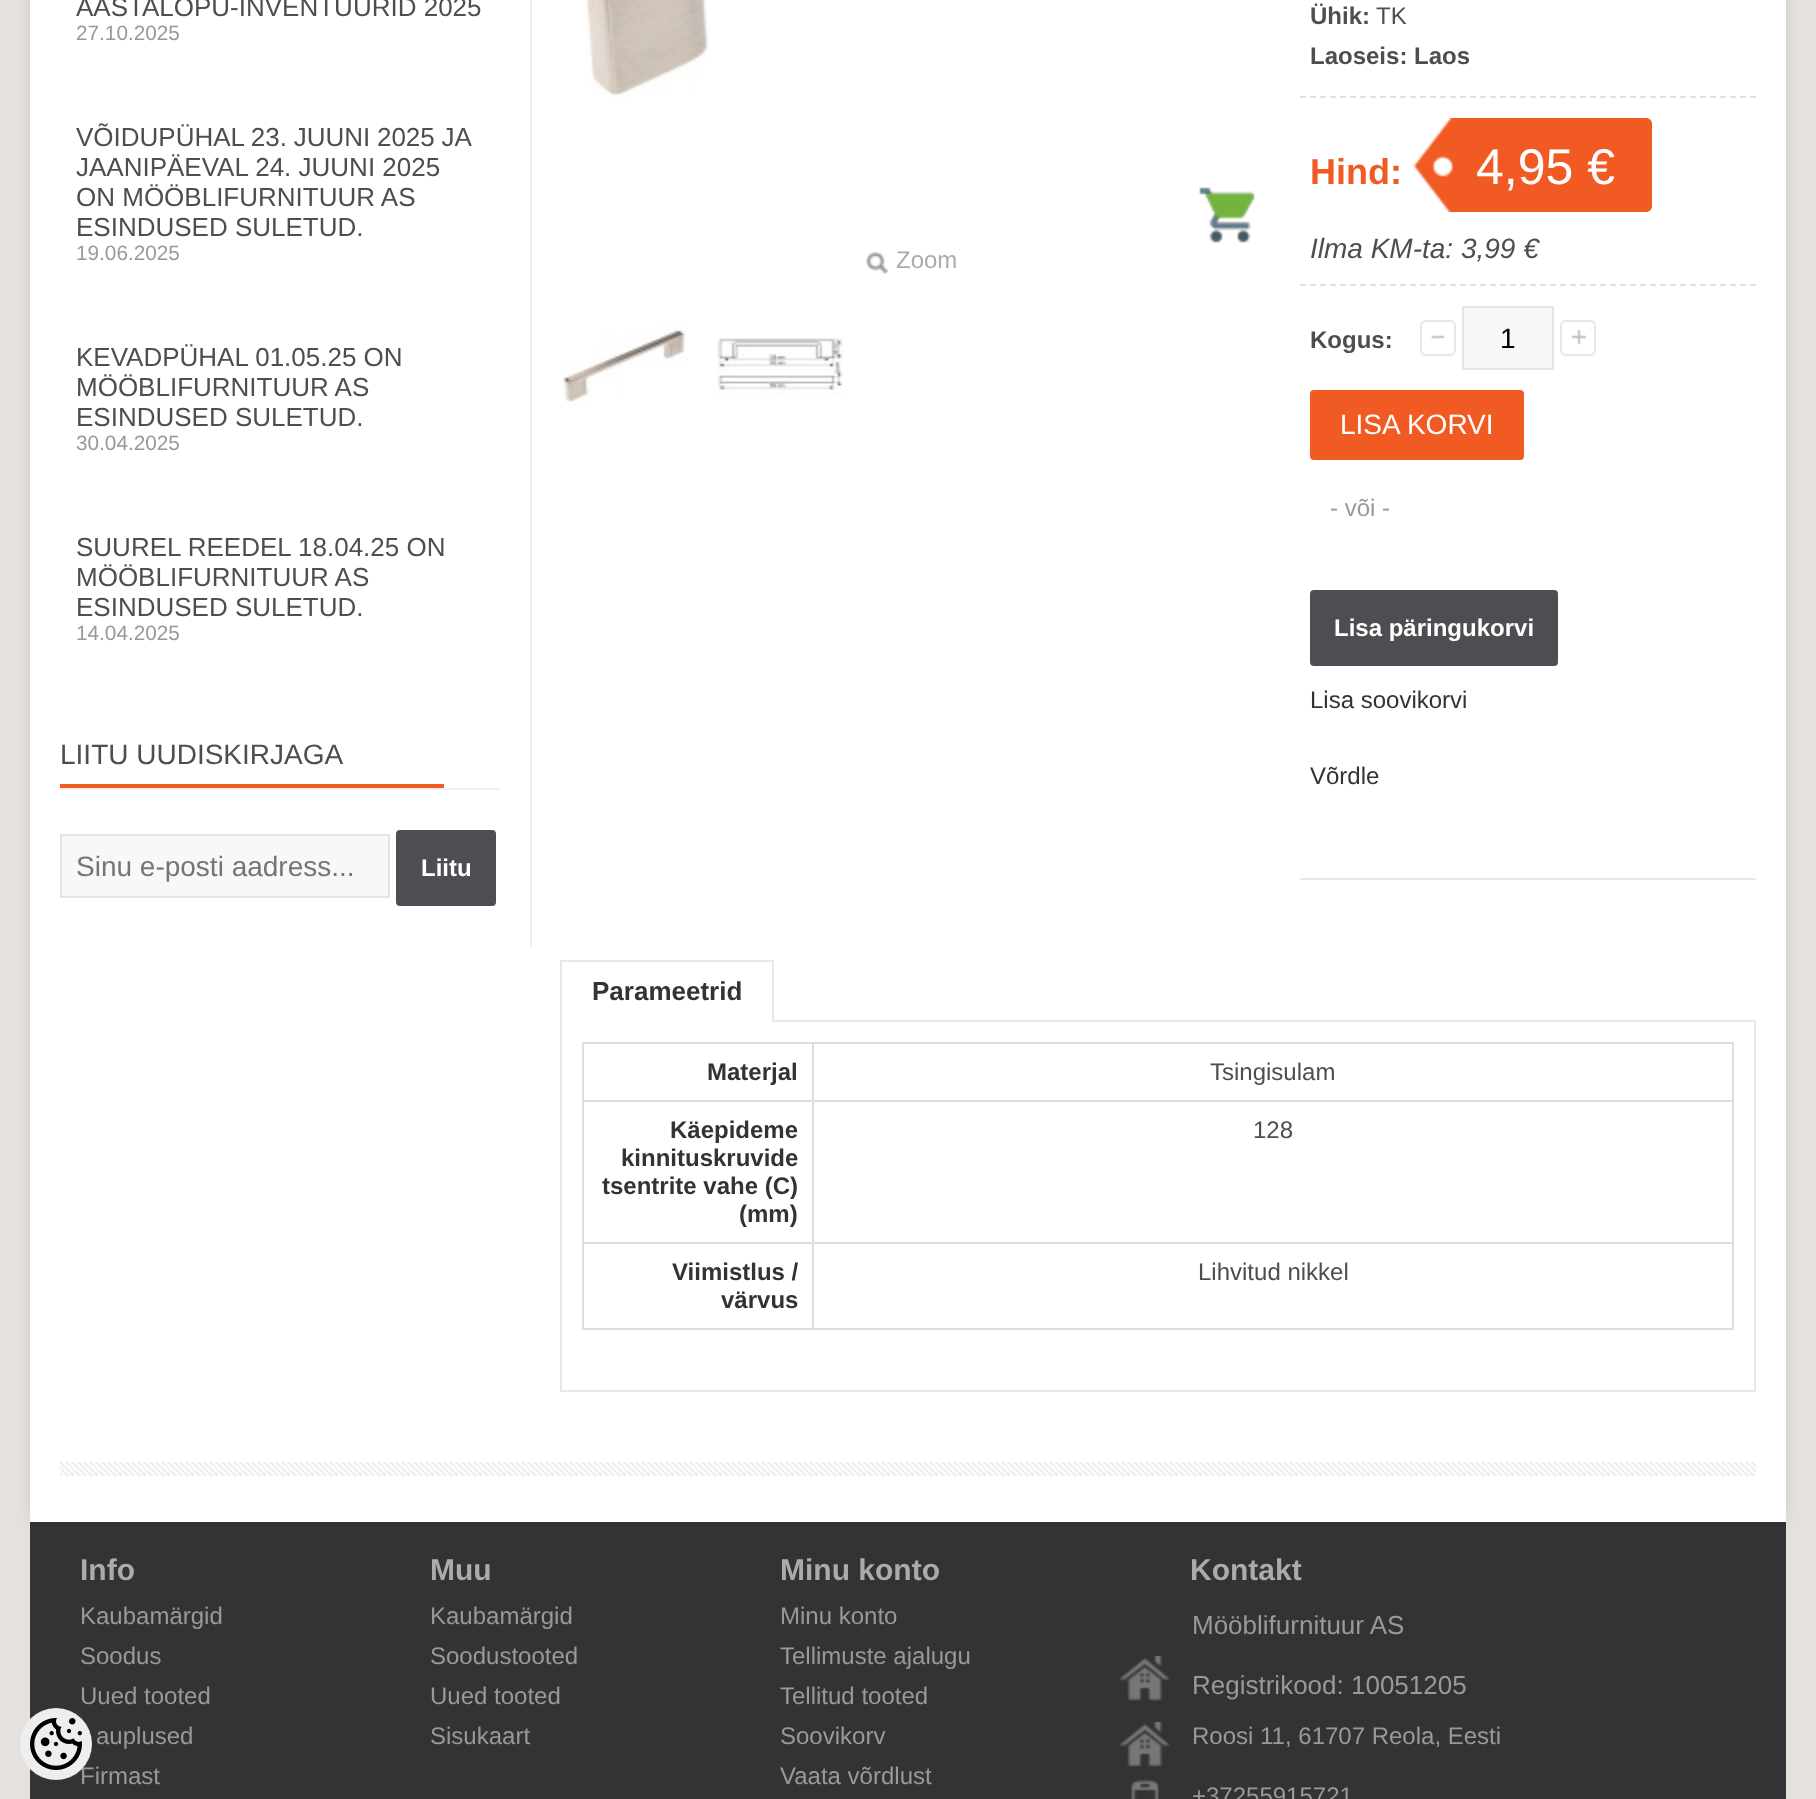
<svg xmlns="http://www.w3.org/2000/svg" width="1816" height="1799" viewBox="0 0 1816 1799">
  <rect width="100%" height="100%" fill="rgb(229,225,220)"/>
  <rect x="30" y="-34" width="1756" height="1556" rx="10" fill="rgba(0,0,0,0.08)" filter="blur(8px)"/>
  <rect x="30" y="0" width="1756" height="1522" fill="rgb(255,255,255)"/>
  <rect x="530" y="0" width="2" height="946" fill="rgb(238,238,238)"/>
  <text x="76" y="16" font-family="Liberation Sans" font-size="26" fill="rgb(78,78,82)">AASTALÕPU-INVENTUURID 2025</text>
  <text x="76" y="40" font-family="Liberation Sans" font-size="20.75" fill="rgb(153,153,153)">27.10.2025</text>
  <g font-family="Liberation Sans" font-size="26" fill="rgb(78,78,82)">
    <text>
      <tspan x="76" y="146" word-spacing="-0.5">VÕIDUPÜHAL 23. JUUNI 2025 JA</tspan>
      <tspan x="76" y="176">JAANIPÄEVAL 24. JUUNI 2025</tspan>
      <tspan x="76" y="206">ON MÖÖBLIFURNITUUR AS</tspan>
      <tspan x="76" y="236">ESINDUSED SULETUD.</tspan>
    </text>
  </g>
  <text x="76" y="260" font-family="Liberation Sans" font-size="20.75" fill="rgb(153,153,153)">19.06.2025</text>
  <g font-family="Liberation Sans" font-size="26" fill="rgb(78,78,82)">
    <text>
      <tspan x="76" y="366">KEVADPÜHAL 01.05.25 ON</tspan>
      <tspan x="76" y="396">MÖÖBLIFURNITUUR AS</tspan>
      <tspan x="76" y="426">ESINDUSED SULETUD.</tspan>
    </text>
  </g>
  <text x="76" y="450" font-family="Liberation Sans" font-size="20.75" fill="rgb(153,153,153)">30.04.2025</text>
  <g font-family="Liberation Sans" font-size="26" fill="rgb(78,78,82)">
    <text>
      <tspan x="76" y="556">SUUREL REEDEL 18.04.25 ON</tspan>
      <tspan x="76" y="586">MÖÖBLIFURNITUUR AS</tspan>
      <tspan x="76" y="616">ESINDUSED SULETUD.</tspan>
    </text>
  </g>
  <text x="76" y="640" font-family="Liberation Sans" font-size="20.75" fill="rgb(153,153,153)">14.04.2025</text>
  <rect x="60" y="788" width="440" height="2" fill="rgb(238,238,238)"/>
  <rect x="60" y="784" width="384" height="4" fill="rgb(241,90,35)"/>
  <text x="60" y="764" font-family="Liberation Sans" font-size="28" fill="rgb(78,78,82)">LIITU UUDISKIRJAGA</text>
  <rect x="61" y="835" width="328" height="62" fill="rgb(248,248,248)" stroke="rgb(228,228,228)" stroke-width="2"/>
  <text x="76" y="876" font-family="Liberation Sans" font-size="28" fill="rgb(117,117,117)">Sinu e-posti aadress...</text>
  <rect x="396" y="830" width="100" height="76" rx="4" fill="rgb(78,78,82)"/>
  <text x="421" y="876" font-family="Liberation Sans" font-size="24" font-weight="bold" fill="rgb(255,255,255)">Liitu</text>
  <image x="585" y="0" width="124" height="97" href="pic1.png"/>
  <image x="1199" y="187" width="56" height="56" href="pic2.png"/>
  <image x="866" y="252" width="22" height="22" href="pic3.png"/>
  <text x="896" y="268" font-family="Liberation Sans" font-size="24" fill="rgb(171,171,171)">Zoom</text>
  <image x="560" y="325" width="128" height="83" href="pic4.png"/>
  <image x="717" y="338" width="127" height="57" href="pic5.png"/>
  <path d="M1300 97H1756" fill="none" stroke="rgb(226,226,226)" stroke-width="2" stroke-dasharray="6 4"/>
  <text x="1310" y="24" font-family="Liberation Sans" font-size="24" font-weight="bold" fill="rgb(78,78,82)">Ühik:</text>
  <text x="1376" y="24" font-family="Liberation Sans" font-size="24" fill="rgb(78,78,82)">TK</text>
  <text x="1310" y="64" font-family="Liberation Sans" font-size="24" font-weight="bold" fill="rgb(78,78,82)">Laoseis: Laos</text>
  <path d="M1300 285H1756" fill="none" stroke="rgb(226,226,226)" stroke-width="2" stroke-dasharray="6 4"/>
  <text x="1310" y="184" font-family="Liberation Sans" font-size="36" font-weight="bold" fill="rgb(241,90,35)">Hind:</text>
  <path d="M1412 118H1646C1649.5 118 1652 120.5 1652 124V206C1652 209.5 1649.5 212 1646 212H1412Z" fill="rgb(241,90,35)"/>
  <image x="1412" y="118" width="42" height="94" href="pic6.png"/>
  <text x="1476" y="184" font-family="Liberation Sans" font-size="50" fill="rgb(255,255,255)">4,95 €</text>
  <text x="1310" y="258" font-family="Liberation Sans" font-size="28" font-style="italic" fill="rgb(78,78,82)">Ilma KM-ta: 3,99 €</text>
  <rect x="1300" y="878" width="456" height="2" fill="rgb(231,231,231)"/>
  <text x="1310" y="348" font-family="Liberation Sans" font-size="24" font-weight="bold" fill="rgb(78,78,82)">Kogus:</text>
  <image x="1431" y="335" width="15" height="4" href="pic7.png"/>
  <rect x="1421" y="321" width="34" height="34" rx="5" fill="none" stroke="rgb(230,230,230)" stroke-width="2"/>
  <rect x="1463" y="307" width="90" height="62" fill="rgb(248,248,248)" stroke="rgb(228,228,228)" stroke-width="2"/>
  <text x="1500" y="348" font-family="Liberation Sans" font-size="28" fill="rgb(0,0,0)">1</text>
  <image x="1571" y="329" width="16" height="16" href="pic8.png"/>
  <rect x="1561" y="321" width="34" height="34" rx="5" fill="none" stroke="rgb(230,230,230)" stroke-width="2"/>
  <rect x="1310" y="390" width="214" height="70" rx="4" fill="rgb(241,90,35)"/>
  <text x="1340" y="434" font-family="Liberation Sans" font-size="28" fill="rgb(255,255,255)">LISA KORVI</text>
  <text x="1330" y="516" font-family="Liberation Sans" font-size="24" fill="rgb(153,153,153)">- või -</text>
  <rect x="1310" y="590" width="248" height="76" rx="4" fill="rgb(78,78,82)"/>
  <text x="1334" y="636" font-family="Liberation Sans" font-size="24" font-weight="bold" fill="rgb(255,255,255)">Lisa päringukorvi</text>
  <g font-family="Liberation Sans" font-size="24" fill="rgb(51,51,51)">
    <text x="1310" y="708">Lisa soovikorvi</text>
    <text x="1310" y="784">Võrdle</text>
  </g>
  <rect x="774" y="1020" width="982" height="2" fill="rgb(228,232,241)"/>
  <rect x="560" y="960" width="214" height="2" fill="rgb(228,232,241)"/>
  <rect x="772" y="960" width="2" height="62" fill="rgb(228,232,241)"/>
  <rect x="560" y="960" width="2" height="62" fill="rgb(228,232,241)"/>
  <text x="592" y="1000" font-family="Liberation Sans" font-size="26" font-weight="bold" fill="rgb(51,51,51)">Parameetrid</text>
  <rect x="1754" y="1022" width="2" height="370" fill="rgb(228,232,241)"/>
  <rect x="560" y="1390" width="1196" height="2" fill="rgb(228,232,241)"/>
  <rect x="560" y="1022" width="2" height="370" fill="rgb(228,232,241)"/>
  <rect x="582" y="1042" width="1152" height="2" fill="rgb(221,221,221)"/>
  <rect x="582" y="1042" width="2" height="288" fill="rgb(221,221,221)"/>
  <rect x="1732" y="1042" width="2" height="288" fill="rgb(221,221,221)"/>
  <rect x="812" y="1328" width="922" height="2" fill="rgb(221,221,221)"/>
  <rect x="812" y="1242" width="2" height="88" fill="rgb(221,221,221)"/>
  <rect x="812" y="1242" width="922" height="2" fill="rgb(221,221,221)"/>
  <rect x="812" y="1100" width="2" height="144" fill="rgb(221,221,221)"/>
  <rect x="812" y="1100" width="922" height="2" fill="rgb(221,221,221)"/>
  <rect x="812" y="1042" width="2" height="60" fill="rgb(221,221,221)"/>
  <rect x="582" y="1100" width="232" height="2" fill="rgb(221,221,221)"/>
  <text x="707" y="1080" font-family="Liberation Sans" font-size="24" font-weight="bold" fill="rgb(51,51,51)">Materjal</text>
  <text x="1210" y="1080" font-family="Liberation Sans" font-size="24" fill="rgb(78,78,82)">Tsingisulam</text>
  <rect x="582" y="1242" width="232" height="2" fill="rgb(221,221,221)"/>
  <g font-family="Liberation Sans" font-size="24" font-weight="bold" fill="rgb(51,51,51)">
    <text x="670" y="1138">Käepideme</text>
    <text x="621" y="1166">kinnituskruvide</text>
    <text x="602" y="1194">tsentrite vahe (C)</text>
    <text x="739" y="1222">(mm)</text>
  </g>
  <text x="1253" y="1138" font-family="Liberation Sans" font-size="24" fill="rgb(78,78,82)">128</text>
  <rect x="582" y="1328" width="232" height="2" fill="rgb(221,221,221)"/>
  <g font-family="Liberation Sans" font-size="24" font-weight="bold" fill="rgb(51,51,51)">
    <text x="672" y="1280">Viimistlus /</text>
    <text x="721" y="1308">värvus</text>
  </g>
  <text x="1198" y="1280" font-family="Liberation Sans" font-size="24" fill="rgb(78,78,82)">Lihvitud nikkel</text>
  <image x="60" y="1462" width="1696" height="14" href="pic9.png"/>
  <rect x="30" y="1522" width="1756" height="277" fill="rgb(51,51,51)"/>
  <text x="80" y="1784" font-family="Liberation Sans" font-size="24" fill="rgb(153,153,153)">Firmast</text>
  <circle cx="56" cy="1744" r="36" fill="rgb(238,238,238)"/>
  <image x="30" y="1718" width="52" height="52" href="pic10.png"/>
  <text x="80" y="1580" font-family="Liberation Sans" font-size="30" font-weight="bold" fill="rgb(171,171,171)">Info</text>
  <g font-family="Liberation Sans" font-size="24" fill="rgb(153,153,153)">
    <text>
      <tspan x="80" y="1624">Kaubamärgid</tspan>
      <tspan x="80" y="1664">Soodus</tspan>
      <tspan x="80" y="1704">Uued tooted</tspan>
    </text>
    <text x="96" y="1744">auplused</text>
  </g>
  <text x="430" y="1580" font-family="Liberation Sans" font-size="30" font-weight="bold" fill="rgb(171,171,171)">Muu</text>
  <g font-family="Liberation Sans" font-size="24" fill="rgb(153,153,153)">
    <text>
      <tspan x="430" y="1624">Kaubamärgid</tspan>
      <tspan x="430" y="1664">Soodustooted</tspan>
      <tspan x="430" y="1704">Uued tooted</tspan>
      <tspan x="430" y="1744">Sisukaart</tspan>
    </text>
  </g>
  <text x="780" y="1580" font-family="Liberation Sans" font-size="30" font-weight="bold" fill="rgb(171,171,171)">Minu konto</text>
  <g font-family="Liberation Sans" font-size="24" fill="rgb(153,153,153)">
    <text>
      <tspan x="780" y="1624">Minu konto</tspan>
      <tspan x="780" y="1664">Tellimuste ajalugu</tspan>
      <tspan x="780" y="1704">Tellitud tooted</tspan>
      <tspan x="780" y="1744">Soovikorv</tspan>
      <tspan x="780" y="1784">Vaata võrdlust</tspan>
    </text>
  </g>
  <text x="1190" y="1580" font-family="Liberation Sans" font-size="30" font-weight="bold" fill="rgb(171,171,171)">Kontakt</text>
  <text x="1192" y="1634" font-family="Liberation Sans" font-size="26" fill="rgb(153,153,153)">Mööblifurnituur AS</text>
  <image x="1120" y="1656" width="50" height="45" href="pic11.png"/>
  <text x="1192" y="1694" font-family="Liberation Sans" font-size="26" fill="rgb(153,153,153)">Registrikood: 10051205</text>
  <image x="1120" y="1722" width="50" height="45" href="pic11.png"/>
  <text x="1192" y="1744" font-family="Liberation Sans" font-size="24" fill="rgb(153,153,153)">Roosi 11, 61707 Reola, Eesti</text>
  <image x="1130" y="1779" width="29" height="20" href="pic12.png"/>
  <text x="1192" y="1804" font-family="Liberation Sans" font-size="24" fill="rgb(153,153,153)">+37255915721</text>
</svg>
